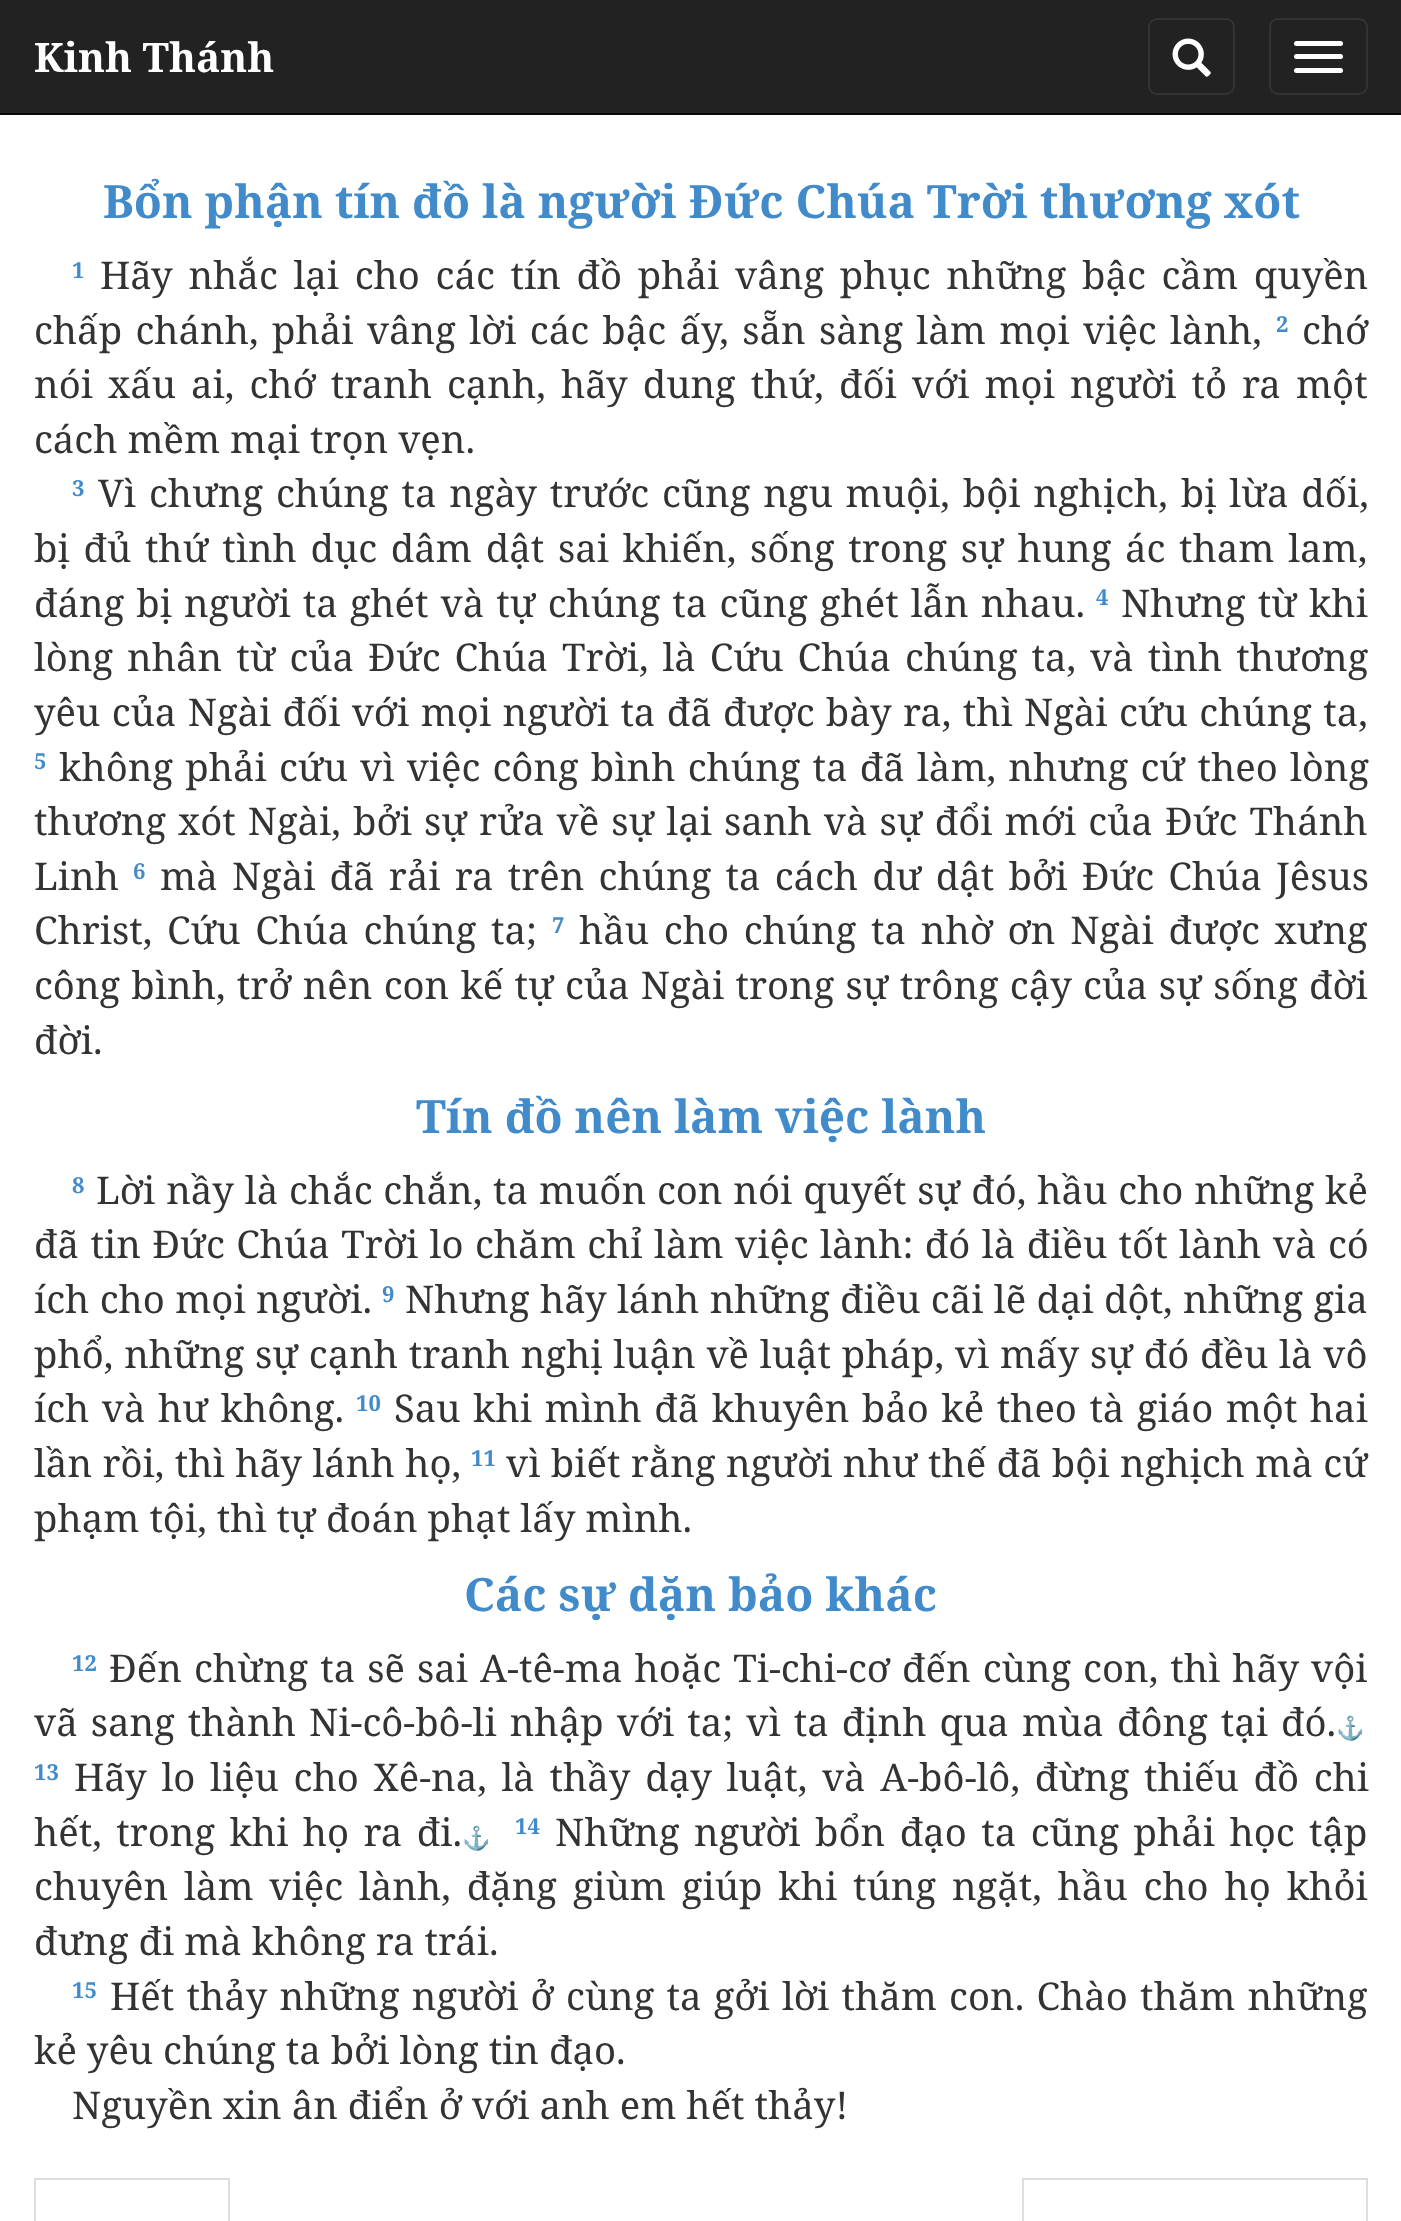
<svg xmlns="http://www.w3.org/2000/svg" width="1401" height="2221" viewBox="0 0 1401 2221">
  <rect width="100%" height="100%" fill="rgb(255,255,255)"/>
  <rect x="0" y="0" width="1401" height="113" fill="rgb(34,34,34)"/>
  <rect x="0" y="113" width="1401" height="2" fill="rgb(8,8,8)"/>
  <text x="34" y="72" font-family="Noto Serif" font-size="40.5" font-weight="bold" fill="rgb(255,255,255)">Kinh Thánh</text>
  <rect x="1149" y="19" width="85" height="75" rx="8" fill="none" stroke="rgb(51,51,51)" stroke-width="2"/>
  <image x="1172" y="38" width="39" height="39" href="pic1.png"/>
  <rect x="1270" y="19" width="97" height="75" rx="8" fill="none" stroke="rgb(51,51,51)" stroke-width="2"/>
  <rect x="1294" y="41" width="49" height="5" rx="2.5" fill="rgb(255,255,255)"/>
  <rect x="1294" y="54" width="49" height="5" rx="2.5" fill="rgb(255,255,255)"/>
  <rect x="1294" y="68" width="49" height="5" rx="2.5" fill="rgb(255,255,255)"/>
  <text x="103" y="218" font-family="Noto Serif" font-size="45.9" font-weight="bold" fill="rgb(66,139,202)">Bổn phận tín đồ là người Đức Chúa Trời thương xót</text>
  <text x="72" y="278" font-family="Noto Serif" font-size="22" font-weight="bold" fill="rgb(66,139,202)">1</text>
  <g font-family="Noto Serif" font-size="38.25" fill="rgb(51,51,51)">
    <text x="100" y="289" word-spacing="5.75">Hãy nhắc lại cho các tín đồ phải vâng phục những bậc cầm quyền</text>
    <text x="34" y="344" word-spacing="3.4">chấp chánh, phải vâng lời các bậc ấy, sẵn sàng làm mọi việc lành,</text>
  </g>
  <text x="1276" y="332" font-family="Noto Serif" font-size="22" font-weight="bold" fill="rgb(66,139,202)">2</text>
  <g font-family="Noto Serif" font-size="38.25" fill="rgb(51,51,51)">
    <text x="1302" y="344">chớ</text>
    <text>
      <tspan x="34" y="398" word-spacing="5.1">nói xấu ai, chớ tranh cạnh, hãy dung thứ, đối với mọi người tỏ ra một</tspan>
      <tspan x="34" y="453">cách mềm mại trọn vẹn.</tspan>
    </text>
  </g>
  <text x="72" y="496" font-family="Noto Serif" font-size="22" font-weight="bold" fill="rgb(66,139,202)">3</text>
  <g font-family="Noto Serif" font-size="38.25" fill="rgb(51,51,51)">
    <text x="98" y="507" word-spacing="2.9">Vì chưng chúng ta ngày trước cũng ngu muội, bội nghịch, bị lừa dối,</text>
    <text>
      <tspan x="34" y="562" word-spacing="3.75">bị đủ thứ tình dục dâm dật sai khiến, sống trong sự hung ác tham lam,</tspan>
      <tspan x="34" y="617" word-spacing="2.1">đáng bị người ta ghét và tự chúng ta cũng ghét lẫn nhau.</tspan>
    </text>
  </g>
  <text x="1096" y="605" font-family="Noto Serif" font-size="22" font-weight="bold" fill="rgb(66,139,202)">4</text>
  <g font-family="Noto Serif" font-size="38.25" fill="rgb(51,51,51)">
    <text x="1121" y="617" word-spacing="2.1">Nhưng từ khi</text>
    <text>
      <tspan x="34" y="671" word-spacing="4">lòng nhân từ của Đức Chúa Trời, là Cứu Chúa chúng ta, và tình thương</tspan>
      <tspan x="34" y="726" word-spacing="1.4">yêu của Ngài đối với mọi người ta đã được bày ra, thì Ngài cứu chúng ta,</tspan>
    </text>
  </g>
  <text x="34" y="769" font-family="Noto Serif" font-size="22" font-weight="bold" fill="rgb(66,139,202)">5</text>
  <g font-family="Noto Serif" font-size="38.25" fill="rgb(51,51,51)">
    <text x="59" y="781" word-spacing="2.25">không phải cứu vì việc công bình chúng ta đã làm, nhưng cứ theo lòng</text>
    <text>
      <tspan x="34" y="835" word-spacing="2.1">thương xót Ngài, bởi sự rửa về sự lại sanh và sự đổi mới của Đức Thánh</tspan>
      <tspan x="34" y="890">Linh</tspan>
    </text>
  </g>
  <text x="133" y="879" font-family="Noto Serif" font-size="22" font-weight="bold" fill="rgb(66,139,202)">6</text>
  <g font-family="Noto Serif" font-size="38.25" fill="rgb(51,51,51)">
    <text x="160" y="890" word-spacing="4.25">mà Ngài đã rải ra trên chúng ta cách dư dật bởi Đức Chúa Jêsus</text>
    <text x="34" y="944" word-spacing="4.75">Christ, Cứu Chúa chúng ta;</text>
  </g>
  <text x="552" y="933" font-family="Noto Serif" font-size="22" font-weight="bold" fill="rgb(66,139,202)">7</text>
  <g font-family="Noto Serif" font-size="38.25" fill="rgb(51,51,51)">
    <text x="579" y="944" word-spacing="4.75">hầu cho chúng ta nhờ ơn Ngài được xưng</text>
    <text>
      <tspan x="34" y="999" word-spacing="1.25">công bình, trở nên con kế tự của Ngài trong sự trông cậy của sự sống đời</tspan>
      <tspan x="34" y="1054">đời.</tspan>
    </text>
  </g>
  <text x="416" y="1133" font-family="Noto Serif" font-size="45.9" font-weight="bold" fill="rgb(66,139,202)">Tín đồ nên làm việc lành</text>
  <text x="72" y="1193" font-family="Noto Serif" font-size="22" font-weight="bold" fill="rgb(66,139,202)">8</text>
  <g font-family="Noto Serif" font-size="38.25" fill="rgb(51,51,51)">
    <text x="96" y="1204" word-spacing="0.9">Lời nầy là chắc chắn, ta muốn con nói quyết sự đó, hầu cho những kẻ</text>
    <text>
      <tspan x="34" y="1258" word-spacing="1.5">đã tin Đức Chúa Trời lo chăm chỉ làm việc lành: đó là điều tốt lành và có</tspan>
      <tspan x="34" y="1313" word-spacing="0.4">ích cho mọi người.</tspan>
    </text>
  </g>
  <text x="382" y="1302" font-family="Noto Serif" font-size="22" font-weight="bold" fill="rgb(66,139,202)">9</text>
  <g font-family="Noto Serif" font-size="38.25" fill="rgb(51,51,51)">
    <text x="405" y="1313" word-spacing="0.4">Nhưng hãy lánh những điều cãi lẽ dại dột, những gia</text>
    <text>
      <tspan x="34" y="1368" word-spacing="0.8">phổ, những sự cạnh tranh nghị luận về luật pháp, vì mấy sự đó đều là vô</tspan>
      <tspan x="34" y="1422" word-spacing="2.5">ích và hư không.</tspan>
    </text>
  </g>
  <text x="356" y="1411" font-family="Noto Serif" font-size="22" font-weight="bold" fill="rgb(66,139,202)">10</text>
  <g font-family="Noto Serif" font-size="38.25" fill="rgb(51,51,51)">
    <text x="394" y="1422" word-spacing="2.5">Sau khi mình đã khuyên bảo kẻ theo tà giáo một hai</text>
    <text x="34" y="1477" word-spacing="0.5">lần rồi, thì hãy lánh họ,</text>
  </g>
  <text x="471" y="1466" font-family="Noto Serif" font-size="22" font-weight="bold" fill="rgb(66,139,202)">11</text>
  <g font-family="Noto Serif" font-size="38.25" fill="rgb(51,51,51)">
    <text x="506" y="1477" word-spacing="0.4">vì biết rằng người như thế đã bội nghịch mà cứ</text>
    <text x="34" y="1532">phạm tội, thì tự đoán phạt lấy mình.</text>
  </g>
  <text x="464" y="1611" font-family="Noto Serif" font-size="45.9" font-weight="bold" fill="rgb(66,139,202)">Các sự dặn bảo khác</text>
  <text x="72" y="1671" font-family="Noto Serif" font-size="22" font-weight="bold" fill="rgb(66,139,202)">12</text>
  <g font-family="Noto Serif" font-size="38.25" fill="rgb(51,51,51)">
    <text x="109" y="1682" word-spacing="2.1">Đến chừng ta sẽ sai A-tê-ma hoặc Ti-chi-cơ đến cùng con, thì hãy vội</text>
    <text x="34" y="1736" word-spacing="3.1">vã sang thành Ni-cô-bô-li nhập với ta; vì ta định qua mùa đông tại đó.</text>
  </g>
  <text x="1336" y="1736" font-family="Noto Color Emoji" font-size="23" fill="rgb(66,139,202)">⚓</text>
  <text x="34" y="1780" font-family="Noto Serif" font-size="22" font-weight="bold" fill="rgb(66,139,202)">13</text>
  <g font-family="Noto Serif" font-size="38.25" fill="rgb(51,51,51)">
    <text x="74" y="1791" word-spacing="4.75">Hãy lo liệu cho Xê-na, là thầy dạy luật, và A-bô-lô, đừng thiếu đồ chi</text>
    <text x="34" y="1846" word-spacing="4.5">hết, trong khi họ ra đi.</text>
  </g>
  <text x="462" y="1846" font-family="Noto Color Emoji" font-size="23" fill="rgb(66,139,202)">⚓</text>
  <text x="515" y="1834" font-family="Noto Serif" font-size="22" font-weight="bold" fill="rgb(66,139,202)">14</text>
  <g font-family="Noto Serif" font-size="38.25" fill="rgb(51,51,51)">
    <text x="555" y="1846" word-spacing="4.5">Những người bổn đạo ta cũng phải học tập</text>
    <text>
      <tspan x="34" y="1900" word-spacing="5.9">chuyên làm việc lành, đặng giùm giúp khi túng ngặt, hầu cho họ khỏi</tspan>
      <tspan x="34" y="1955">đưng đi mà không ra trái.</tspan>
    </text>
  </g>
  <text x="72" y="1998" font-family="Noto Serif" font-size="22" font-weight="bold" fill="rgb(66,139,202)">15</text>
  <g font-family="Noto Serif" font-size="38.25" fill="rgb(51,51,51)">
    <text x="110" y="2010" word-spacing="2.25">Hết thảy những người ở cùng ta gởi lời thăm con. Chào thăm những</text>
    <text x="34" y="2064">kẻ yêu chúng ta bởi lòng tin đạo.</text>
    <text x="72" y="2119">Nguyền xin ân điển ở với anh em hết thảy!</text>
  </g>
  <rect x="35" y="2179" width="194" height="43" fill="none" stroke="rgb(221,221,221)" stroke-width="2"/>
  <rect x="1023" y="2179" width="344" height="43" fill="none" stroke="rgb(221,221,221)" stroke-width="2"/>
</svg>
